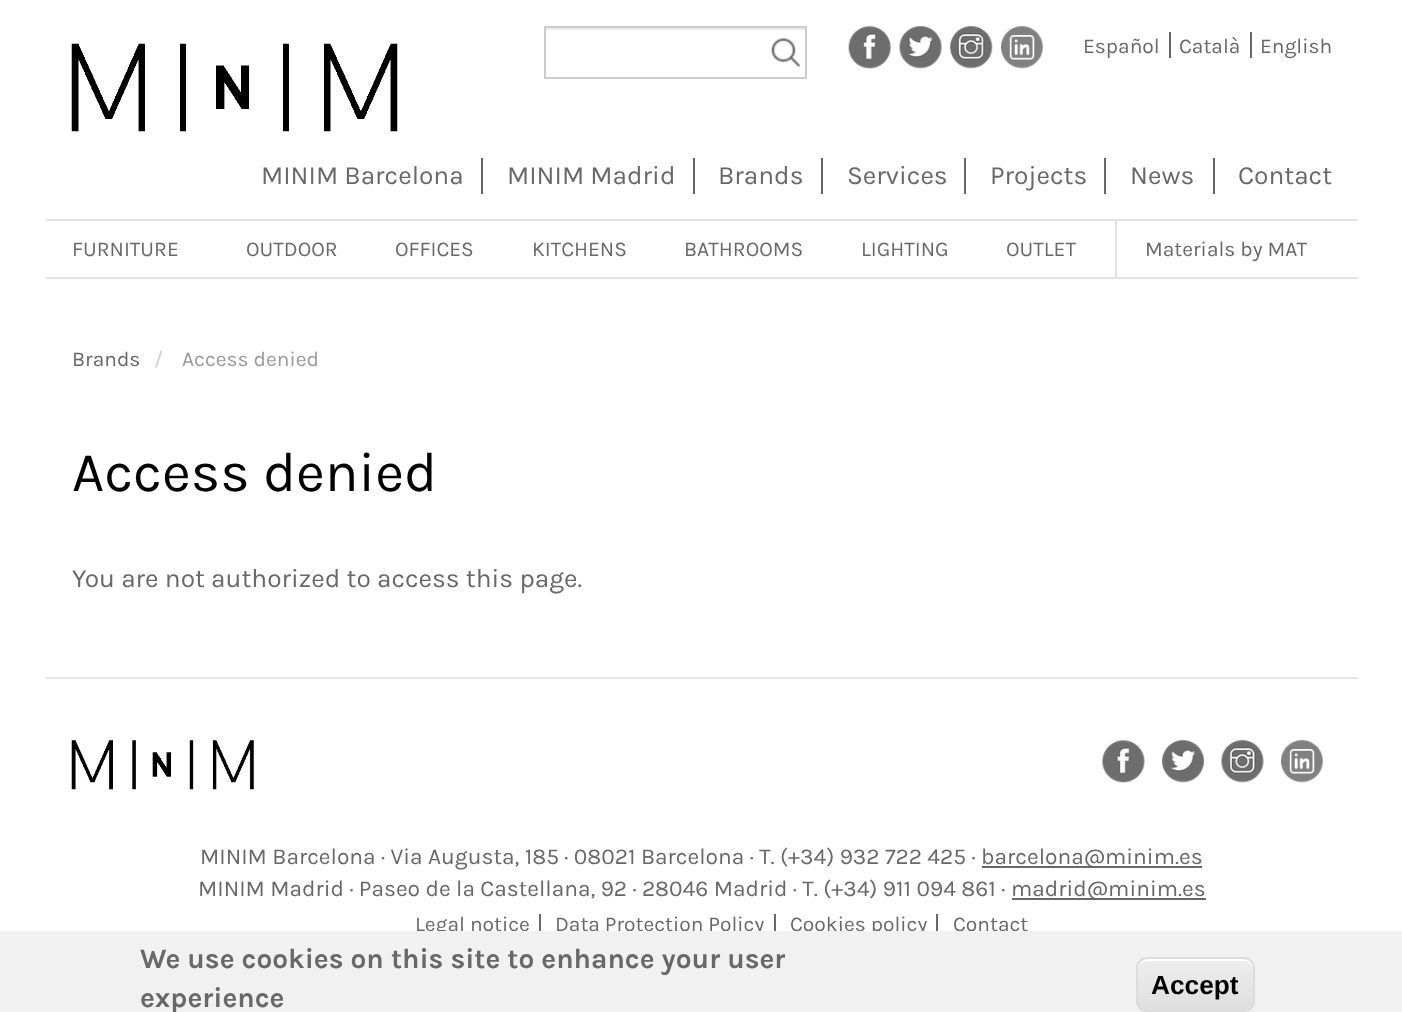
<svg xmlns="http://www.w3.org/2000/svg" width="1402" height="1012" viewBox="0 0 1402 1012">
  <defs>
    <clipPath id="clip1"><rect x="1136" y="957" width="119" height="55" rx="11"/></clipPath>
    <linearGradient id="g1" gradientUnits="userSpaceOnUse" x1="1195" y1="959" x2="1195" y2="1010"><stop offset="0.05" stop-color="rgb(237,237,237)"/><stop offset="1" stop-color="rgb(223,223,223)"/></linearGradient>
  </defs>
  <rect width="100%" height="100%" fill="rgb(255,255,255)"/>
  <image x="71" y="43" width="327" height="89" href="pic1.png"/>
  <rect x="545" y="27" width="261" height="51" fill="none" stroke="rgb(204,204,204)" stroke-width="2"/>
  <image x="771" y="38" width="29" height="29" href="pic2.png"/>
  <rect x="546" y="28" width="259" height="2" fill="rgb(236,236,236)"/>
  <image x="848" y="26" width="43" height="43" href="pic3.png"/>
  <image x="899" y="26" width="43" height="43" href="pic4.png"/>
  <image x="950" y="26" width="43" height="43" href="pic5.png"/>
  <image x="1001" y="26" width="42" height="43" href="pic6.png"/>
  <rect x="1169" y="32" width="2" height="26" fill="rgb(104,104,104)"/>
  <text x="1083" y="53" font-family="Karla" font-size="21" fill="rgb(104,104,104)">Español</text>
  <rect x="1250" y="32" width="2" height="26" fill="rgb(104,104,104)"/>
  <g font-family="Karla" font-size="21" fill="rgb(104,104,104)">
    <text x="1179" y="53">Català</text>
    <text x="1260" y="53">English</text>
  </g>
  <rect x="481" y="158" width="2" height="36" fill="rgb(104,104,104)"/>
  <text x="261" y="184" font-family="Karla" font-size="26.25" fill="rgb(104,104,104)">MINIM Barcelona</text>
  <rect x="693" y="158" width="2" height="36" fill="rgb(104,104,104)"/>
  <text x="507" y="184" font-family="Karla" font-size="26.25" fill="rgb(104,104,104)">MINIM Madrid</text>
  <rect x="821" y="158" width="2" height="36" fill="rgb(104,104,104)"/>
  <text x="718" y="184" font-family="Karla" font-size="26.25" fill="rgb(104,104,104)">Brands</text>
  <rect x="964" y="158" width="2" height="36" fill="rgb(104,104,104)"/>
  <text x="847" y="184" font-family="Karla" font-size="26.25" fill="rgb(104,104,104)">Services</text>
  <rect x="1104" y="158" width="2" height="36" fill="rgb(104,104,104)"/>
  <text x="990" y="184" font-family="Karla" font-size="26.25" fill="rgb(104,104,104)">Projects</text>
  <rect x="1213" y="158" width="2" height="36" fill="rgb(104,104,104)"/>
  <g font-family="Karla" font-size="26.25" fill="rgb(104,104,104)">
    <text x="1130" y="184">News</text>
    <text x="1238" y="184">Contact</text>
  </g>
  <rect x="46" y="219" width="1312" height="2" fill="rgb(226,226,226)"/>
  <rect x="46" y="277" width="1312" height="2" fill="rgb(226,226,226)"/>
  <g font-family="Karla" font-size="21" fill="rgb(104,104,104)">
    <text x="72" y="256">FURNITURE</text>
    <text x="246" y="256">OUTDOOR</text>
    <text x="395" y="256">OFFICES</text>
    <text x="532" y="256">KITCHENS</text>
    <text x="684" y="256">BATHROOMS</text>
    <text x="861" y="256">LIGHTING</text>
    <text x="1006" y="256">OUTLET</text>
  </g>
  <rect x="1115" y="221" width="2" height="56" fill="rgb(226,226,226)"/>
  <g font-family="Karla" font-size="21" fill="rgb(104,104,104)">
    <text x="1145" y="256">Materials by MAT</text>
    <text x="72" y="366">Brands</text>
  </g>
  <text x="154" y="366" font-family="Karla" font-size="21" fill="rgb(204,204,204)">/</text>
  <text x="182" y="366" font-family="Karla" font-size="21" fill="rgb(153,153,153)">Access denied</text>
  <text x="72" y="491" font-family="Karla" font-size="56" fill="rgb(0,0,0)">Access denied</text>
  <text x="72" y="587" font-family="Karla" font-size="26.25" fill="rgb(104,104,104)">You are not authorized to access this page.</text>
  <rect x="46" y="677" width="1312" height="2" fill="rgb(229,229,229)"/>
  <image x="71" y="740" width="183" height="50" href="pic7.png"/>
  <image x="1102" y="740" width="43" height="43" href="pic8.png"/>
  <image x="1162" y="740" width="42" height="43" href="pic9.png"/>
  <image x="1221" y="740" width="43" height="43" href="pic10.png"/>
  <image x="1281" y="740" width="42" height="43" href="pic11.png"/>
  <text x="200" y="864" font-family="Karla" font-size="22.75" fill="rgb(104,104,104)">MINIM Barcelona · Via Augusta, 185 · 08021 Barcelona · T. (+34) 932 722 425 ·</text>
  <rect x="982" y="866" width="220" height="2" fill="rgb(104,104,104)"/>
  <g font-family="Karla" font-size="22.75" fill="rgb(104,104,104)">
    <text x="981" y="864">barcelona@minim.es</text>
    <text x="198" y="896">MINIM Madrid · Paseo de la Castellana, 92 · 28046 Madrid · T. (+34) 911 094 861 ·</text>
  </g>
  <rect x="1012" y="898" width="194" height="2" fill="rgb(104,104,104)"/>
  <text x="1011" y="896" font-family="Karla" font-size="22.75" fill="rgb(104,104,104)">madrid@minim.es</text>
  <rect x="539" y="914" width="2" height="21" fill="rgb(104,104,104)"/>
  <text x="415" y="931" font-family="Karla" font-size="21" fill="rgb(104,104,104)">Legal notice</text>
  <rect x="774" y="914" width="2" height="21" fill="rgb(104,104,104)"/>
  <text x="555" y="931" font-family="Karla" font-size="21" fill="rgb(104,104,104)">Data Protection Policy</text>
  <rect x="936" y="914" width="2" height="21" fill="rgb(104,104,104)"/>
  <g font-family="Karla" font-size="21" fill="rgb(104,104,104)">
    <text x="790" y="931">Cookies policy</text>
    <text x="953" y="931">Contact</text>
  </g>
  <rect x="0" y="931" width="1402" height="81" fill="rgb(241,241,241)"/>
  <g font-family="Karla" font-size="28" font-weight="bold" fill="rgb(104,104,104)">
    <text>
      <tspan x="140" y="968">We use cookies on this site to enhance your user</tspan>
      <tspan x="140" y="1007">experience</tspan>
    </text>
  </g>
  <g clip-path="url(#clip1)">
    <rect x="1136" y="959" width="119" height="51" fill="url(#g1)"/>
  </g>
  <path d="M1146 961H1244C1249 961 1253 965 1253 970C1253 955 1239 959 1228 959H1163C1152 959 1138 955 1138 970C1138 965 1141 961 1146 961Z" fill="rgb(255,255,255)"/>
  <rect x="1137" y="958" width="117" height="53" rx="10" fill="none" stroke="rgb(220,220,220)" stroke-width="2"/>
  <text x="1151" y="994" font-family="Liberation Sans" font-size="26.25" font-weight="bold" fill="rgb(0,0,0)">Accept</text>
</svg>
